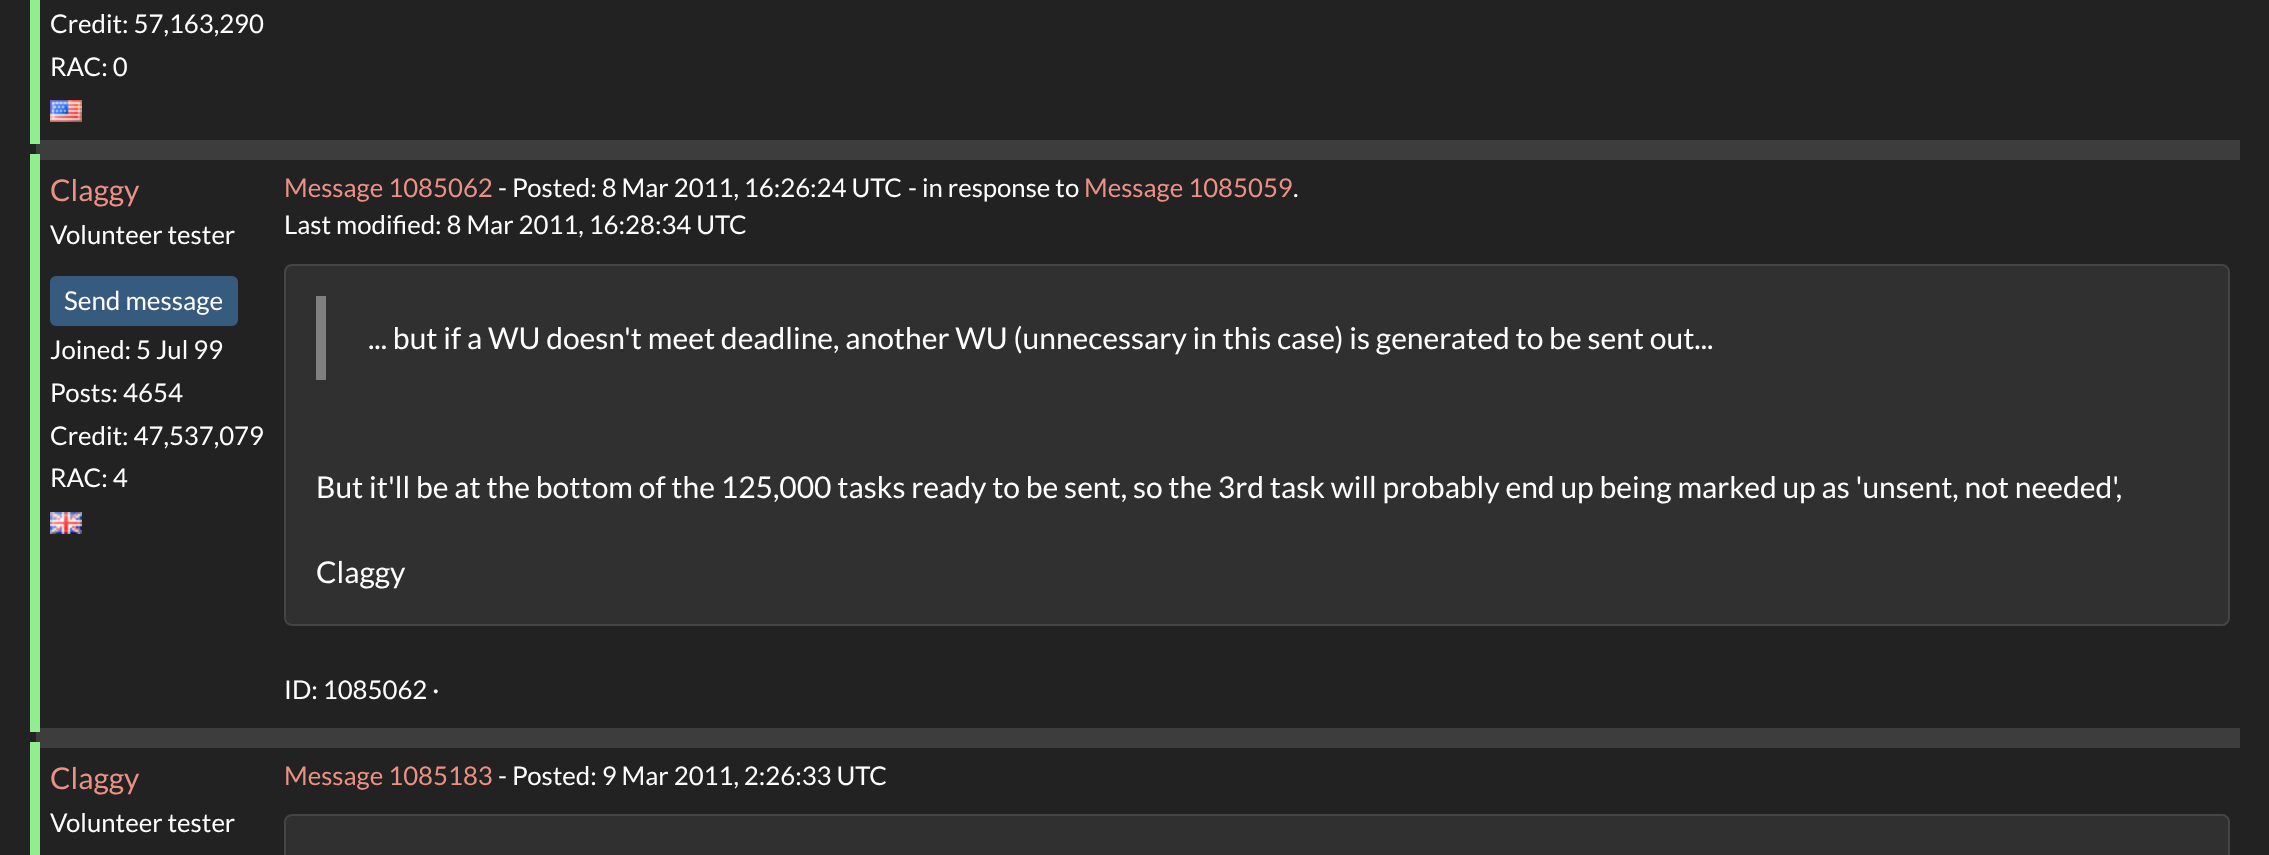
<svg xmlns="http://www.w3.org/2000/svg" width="2269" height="855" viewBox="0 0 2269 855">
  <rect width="100%" height="100%" fill="rgb(34,34,34)"/>
  <rect x="36" y="140" width="2204" height="20" fill="rgb(61,61,61)"/>
  <rect x="30" y="0" width="10" height="144" fill="rgb(144,238,144)"/>
  <g font-family="Lato" font-size="25.75" fill="rgb(255,255,255)">
    <text>
      <tspan x="50" y="33">Credit: 57,163,290</tspan>
      <tspan x="50" y="76">RAC: 0</tspan>
    </text>
  </g>
  <image x="50" y="100" width="32" height="22" href="pic1.png"/>
  <rect x="36" y="728" width="2204" height="20" fill="rgb(61,61,61)"/>
  <rect x="30" y="154" width="10" height="578" fill="rgb(144,238,144)"/>
  <text x="50" y="201" font-family="Lato" font-size="30" fill="rgb(234,145,133)">Claggy</text>
  <text x="50" y="244" font-family="Lato" font-size="25.75" fill="rgb(255,255,255)">Volunteer tester</text>
  <rect x="52" y="278" width="184" height="46" rx="4" fill="rgb(55,90,127)" stroke="rgb(55,90,127)" stroke-width="4"/>
  <text x="64" y="310" font-family="Lato" font-size="26" fill="rgb(255,255,255)">Send message</text>
  <g font-family="Lato" font-size="25.75" fill="rgb(255,255,255)">
    <text>
      <tspan x="50" y="359">Joined: 5 Jul 99</tspan>
      <tspan x="50" y="402">Posts: 4654</tspan>
      <tspan x="50" y="445">Credit: 47,537,079</tspan>
      <tspan x="50" y="487">RAC: 4</tspan>
    </text>
  </g>
  <image x="50" y="512" width="32" height="22" href="pic2.png"/>
  <text x="284" y="197" font-family="Lato" font-size="25.75" fill="rgb(234,145,133)">Message 1085062</text>
  <g font-family="Lato" font-size="25.75" fill="rgb(255,255,255)">
    <text x="498" y="197">- Posted: 8 Mar 2011, 16:26:24 UTC</text>
    <text x="908" y="197">- in response to</text>
  </g>
  <text x="1084" y="197" font-family="Lato" font-size="25.75" fill="rgb(234,145,133)">Message 1085059</text>
  <g font-family="Lato" font-size="25.75" fill="rgb(255,255,255)">
    <text x="1293" y="197">.</text>
    <text x="284" y="234">Last modified: 8 Mar 2011, 16:28:34 UTC</text>
  </g>
  <rect x="285" y="265" width="1944" height="360" rx="7" fill="rgb(48,48,48)" stroke="rgb(70,69,69)" stroke-width="2"/>
  <rect x="316" y="296" width="10" height="84" fill="rgb(128,128,128)"/>
  <g font-family="Lato" font-size="30" fill="rgb(255,255,255)">
    <text x="368" y="349">... but if a WU doesn't meet deadline, another WU (unnecessary in this case) is generated to be sent out...</text>
    <text x="316" y="498">But it'll be at the bottom of the 125,000 tasks ready to be sent, so the 3rd task will probably end up being marked up as 'unsent, not needed',</text>
    <text x="316" y="583">Claggy</text>
  </g>
  <text x="284" y="699" font-family="Lato" font-size="25.75" fill="rgb(255,255,255)">ID: 1085062 ·</text>
  <rect x="30" y="742" width="10" height="113" fill="rgb(144,238,144)"/>
  <text x="50" y="789" font-family="Lato" font-size="30" fill="rgb(234,145,133)">Claggy</text>
  <text x="50" y="832" font-family="Lato" font-size="25.75" fill="rgb(255,255,255)">Volunteer tester</text>
  <text x="284" y="785" font-family="Lato" font-size="25.75" fill="rgb(234,145,133)">Message 1085183</text>
  <text x="498" y="785" font-family="Lato" font-size="25.75" fill="rgb(255,255,255)">- Posted: 9 Mar 2011, 2:26:33 UTC</text>
  <rect x="285" y="815" width="1944" height="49" rx="7" fill="rgb(48,48,48)" stroke="rgb(70,69,69)" stroke-width="2"/>
</svg>
